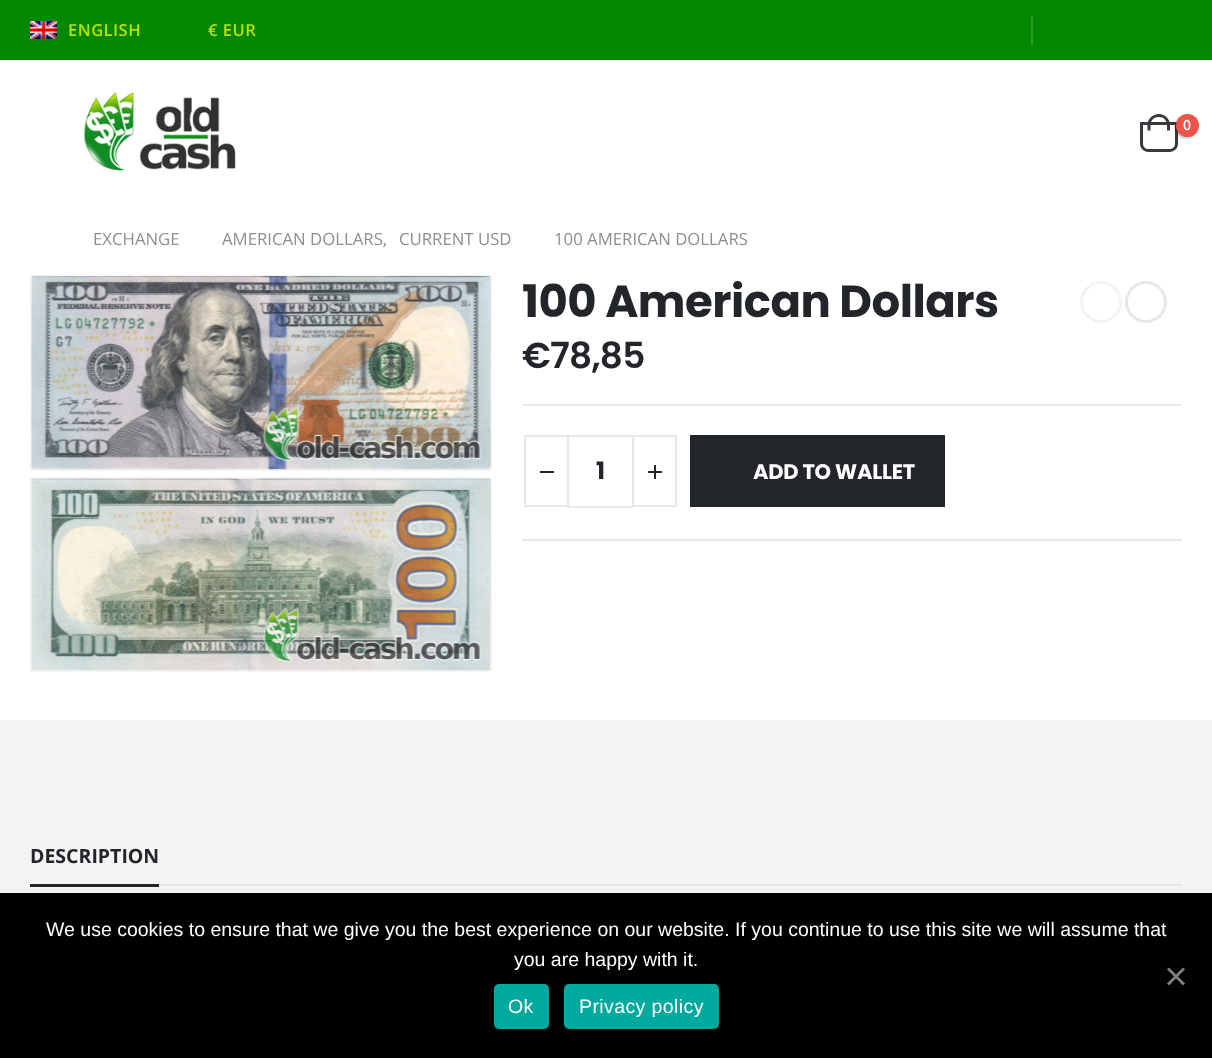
<svg xmlns="http://www.w3.org/2000/svg" width="1212" height="1058" viewBox="0 0 1212 1058">
  <rect width="100%" height="100%" fill="rgb(255,255,255)"/>
  <rect x="0" y="0" width="1212" height="60" fill="rgb(1,136,0)"/>
  <image x="30" y="21" width="27" height="18" href="pic1.png"/>
  <g font-family="Open Sans" font-size="16.5" font-weight="600" letter-spacing="0.5" fill="rgb(188,225,0)">
    <text x="68" y="36">ENGLISH</text>
    <text x="208" y="36">€ EUR</text>
  </g>
  <rect x="1031" y="15" width="2" height="30" fill="rgb(38,153,37)"/>
  <image x="83" y="92" width="153" height="79" href="pic2.png"/>
  <path d="M1141.5 123.5H1176.5V144C1176.5 147.5 1173.5 150.5 1170 150.5H1148C1144.5 150.5 1141.5 147.5 1141.5 144Z" fill="none" stroke="rgb(56,59,62)" stroke-width="3"/>
  <path d="M1159 114C1165 114 1170 119 1170 125V130.5H1147.5V125C1147.5 119 1152.5 114 1159 114ZM1159 117C1163.5 117 1167 120.5 1167 125V130.5H1150.5V125C1150.5 120.5 1154 117 1159 117Z" fill="rgb(56,59,62)" fill-rule="evenodd"/>
  <rect x="1175" y="116" width="22" height="22" rx="11" fill="rgba(0,0,0,0.3)" filter="blur(1.5px)"/>
  <circle cx="1187.5" cy="125.5" r="11.5" fill="rgb(237,83,72)"/>
  <text x="1183" y="130" font-family="Open Sans" font-size="14" font-weight="600" fill="rgb(255,255,255)">0</text>
  <g font-family="Open Sans" font-size="16.75" fill="rgb(142,142,142)">
    <text x="93" y="245">EXCHANGE</text>
    <text x="222" y="245">AMERICAN DOLLARS,</text>
    <text x="399" y="245">CURRENT USD</text>
    <text x="554" y="245">100 AMERICAN DOLLARS</text>
  </g>
  <rect x="31" y="276" width="460" height="194" fill="none" stroke="rgb(244,244,244)" stroke-width="2"/>
  <image x="31" y="276" width="460" height="194" href="pic3.png"/>
  <rect x="31" y="478" width="460" height="193" fill="none" stroke="rgb(244,244,244)" stroke-width="2"/>
  <image x="31" y="478" width="460" height="193" href="pic4.png"/>
  <text x="522" y="317" font-family="Poppins" font-size="45" font-weight="bold" letter-spacing="-0.5" fill="rgb(34,37,41)">100 American Dollars</text>
  <circle cx="1101" cy="302" r="19.5" fill="none" stroke="rgb(243,243,243)" stroke-width="3"/>
  <circle cx="1146" cy="302" r="19.5" fill="none" stroke="rgb(231,231,231)" stroke-width="3"/>
  <text x="522" y="368" font-family="Poppins" font-size="36" font-weight="600" letter-spacing="-0.75" fill="rgb(34,37,41)">€78,85</text>
  <rect x="522" y="404" width="660" height="2" fill="rgb(231,231,231)"/>
  <rect x="522" y="539" width="660" height="2" fill="rgb(231,231,231)"/>
  <rect x="567" y="435" width="66" height="2" fill="rgb(231,231,231)"/>
  <rect x="567" y="506" width="66" height="2" fill="rgb(231,231,231)"/>
  <rect x="525" y="436" width="43" height="70" fill="none" stroke="rgb(231,231,231)" stroke-width="2"/>
  <rect x="540" y="471" width="14" height="2" fill="rgb(34,37,41)"/>
  <text x="596" y="479" font-family="Poppins" font-size="24" font-weight="bold" fill="rgb(34,37,41)">1</text>
  <rect x="633" y="436" width="43" height="70" fill="none" stroke="rgb(231,231,231)" stroke-width="2"/>
  <rect x="648" y="471" width="14" height="2" fill="rgb(34,37,41)"/>
  <rect x="654" y="465" width="2" height="14" fill="rgb(34,37,41)"/>
  <rect x="690" y="435" width="255" height="72" fill="rgb(34,37,41)"/>
  <text x="753" y="479" font-family="Poppins" font-size="21" font-weight="bold" letter-spacing="-0.25" fill="rgb(255,255,255)">ADD TO WALLET</text>
  <rect x="0" y="720" width="1212" height="173" fill="rgb(244,244,244)"/>
  <rect x="30" y="884" width="129" height="3" fill="rgb(34,37,41)"/>
  <text x="30" y="863" font-family="Open Sans" font-size="19.5" font-weight="bold" fill="rgb(34,37,41)">DESCRIPTION</text>
  <rect x="159" y="884" width="1023" height="2" fill="rgb(231,231,231)"/>
  <rect x="0" y="893" width="1212" height="165" fill="rgb(0,0,0)"/>
  <g font-family="Liberation Sans" font-size="19.5" fill="rgb(255,255,255)">
    <text x="46" y="936">We use cookies to ensure that we give you the best experience on our website. If you continue to use this site we will assume that</text>
    <text x="514" y="966">you are happy with it.</text>
  </g>
  <path d="M1183 967.5L1185 969.5L1169 985.5L1167 983.5Z" fill="rgb(128,128,128)"/>
  <path d="M1167 969.5L1169 967.5L1185 983.5L1183 985.5Z" fill="rgb(128,128,128)"/>
  <rect x="494" y="984" width="55" height="45" rx="5" fill="rgb(0,169,157)"/>
  <text x="508" y="1013" font-family="Liberation Sans" font-size="19.5" letter-spacing="0.4" fill="rgb(255,255,255)">Ok</text>
  <rect x="564" y="984" width="155" height="45" rx="5" fill="rgb(0,169,157)"/>
  <text x="579" y="1013" font-family="Liberation Sans" font-size="19.5" letter-spacing="0.4" fill="rgb(255,255,255)">Privacy policy</text>
</svg>
